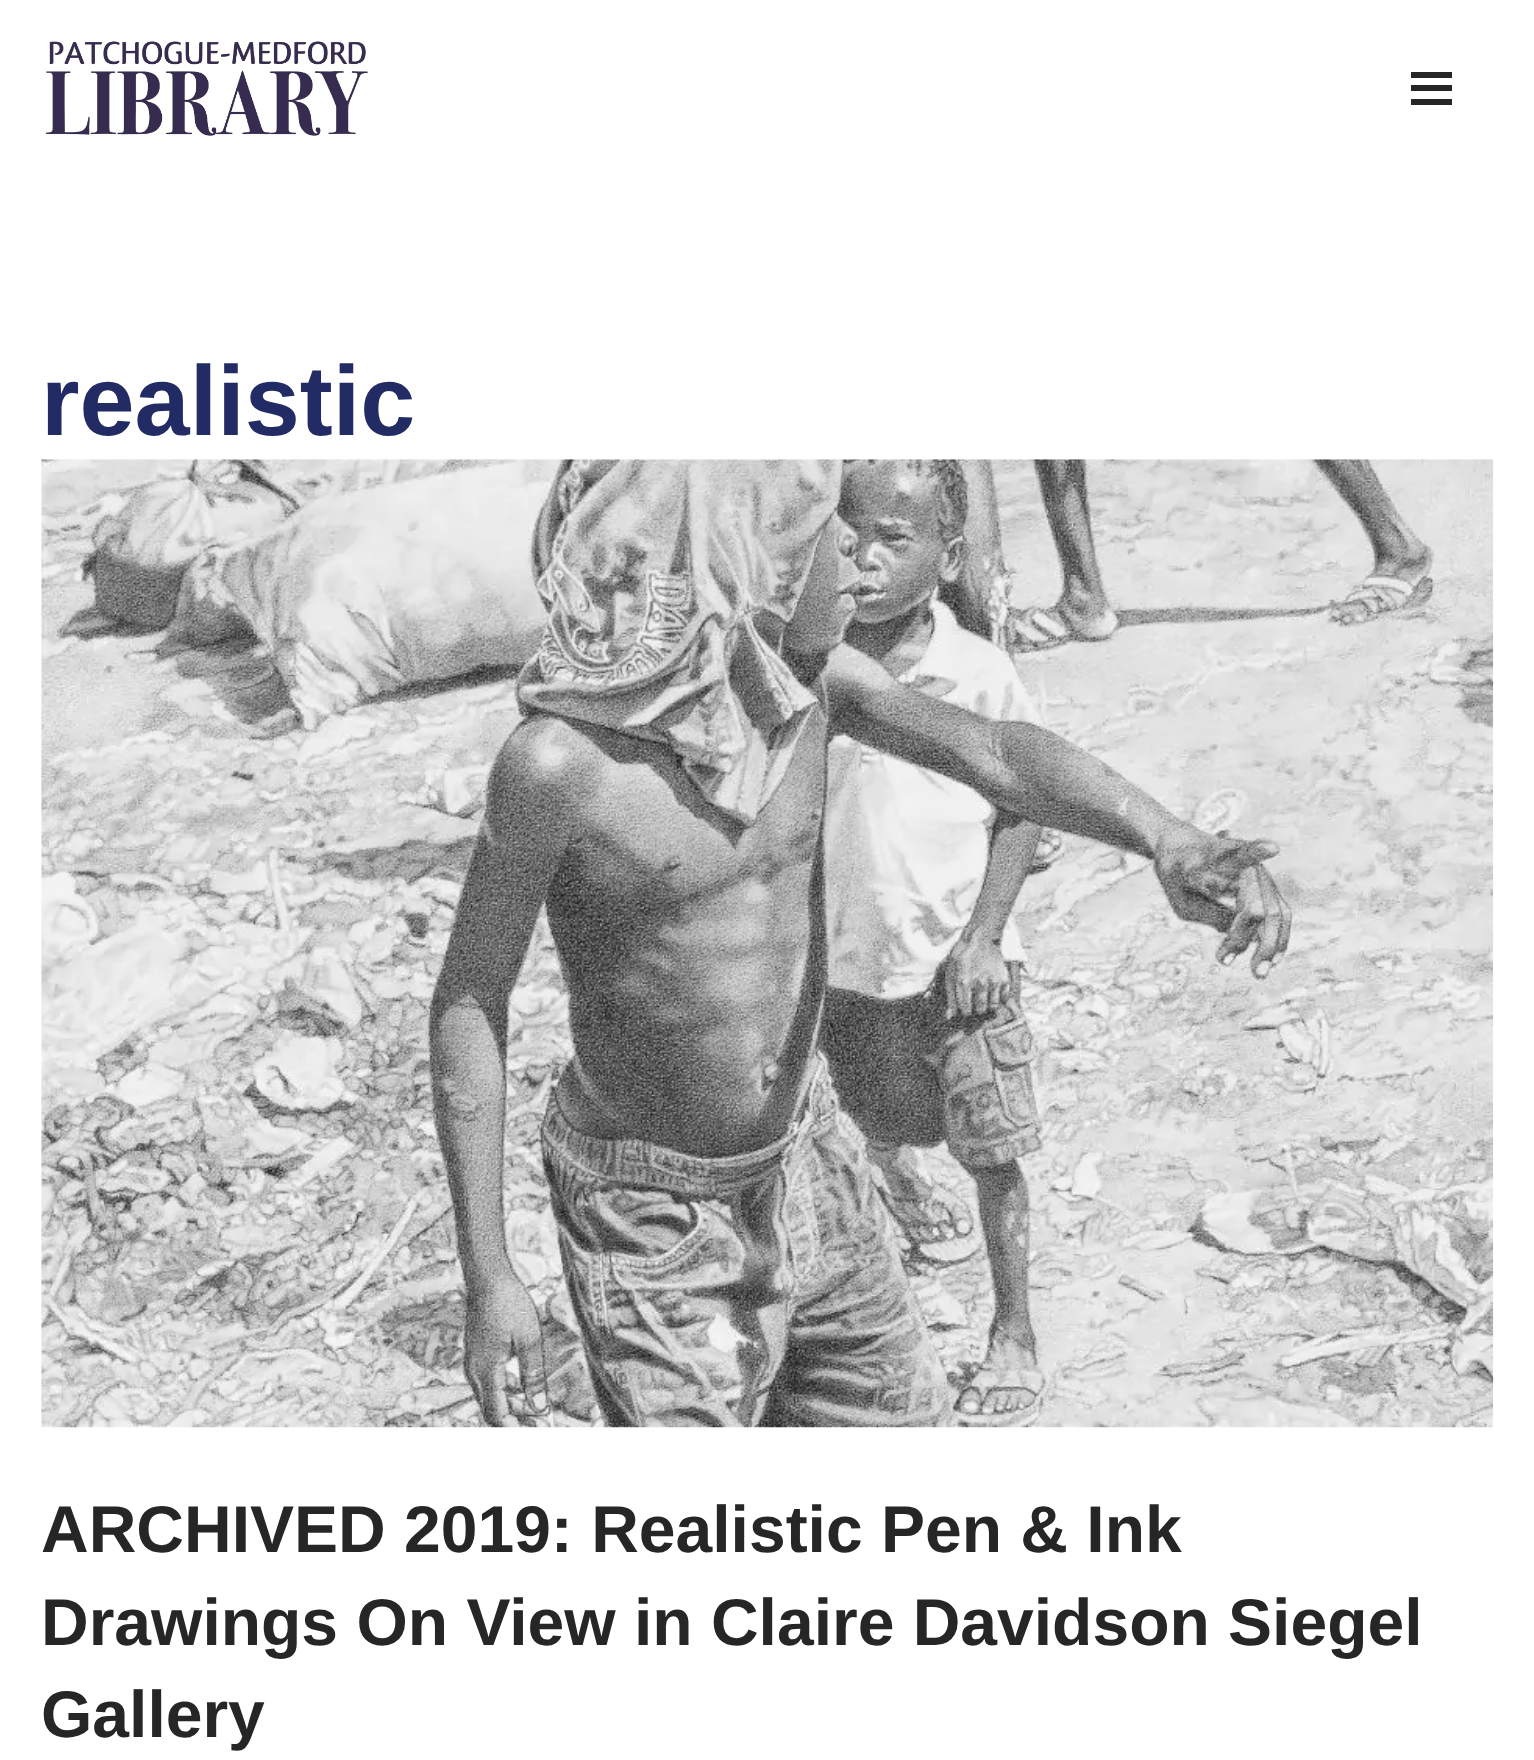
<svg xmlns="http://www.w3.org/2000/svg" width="1534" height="1760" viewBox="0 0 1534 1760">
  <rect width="100%" height="100%" fill="rgb(255,255,255)"/>
  <image x="45" y="41" width="323" height="95" href="pic1.png"/>
  <rect x="1411" y="72" width="41" height="6" fill="rgb(39,38,38)"/>
  <rect x="1411" y="85" width="41" height="6" fill="rgb(39,38,38)"/>
  <rect x="1411" y="99" width="41" height="6" fill="rgb(39,38,38)"/>
  <text x="41" y="435" font-family="Liberation Sans" font-size="99" font-weight="bold" fill="rgb(34,43,99)">realistic</text>
  <image x="41" y="459" width="1453" height="969" href="pic2.png"/>
  <g font-family="Liberation Sans" font-size="66" font-weight="bold" fill="rgb(39,38,38)">
    <text>
      <tspan x="41" y="1552">ARCHIVED 2019: Realistic Pen &amp; Ink</tspan>
      <tspan x="41" y="1645">Drawings On View in Claire Davidson Siegel</tspan>
      <tspan x="41" y="1737">Gallery</tspan>
    </text>
  </g>
</svg>
